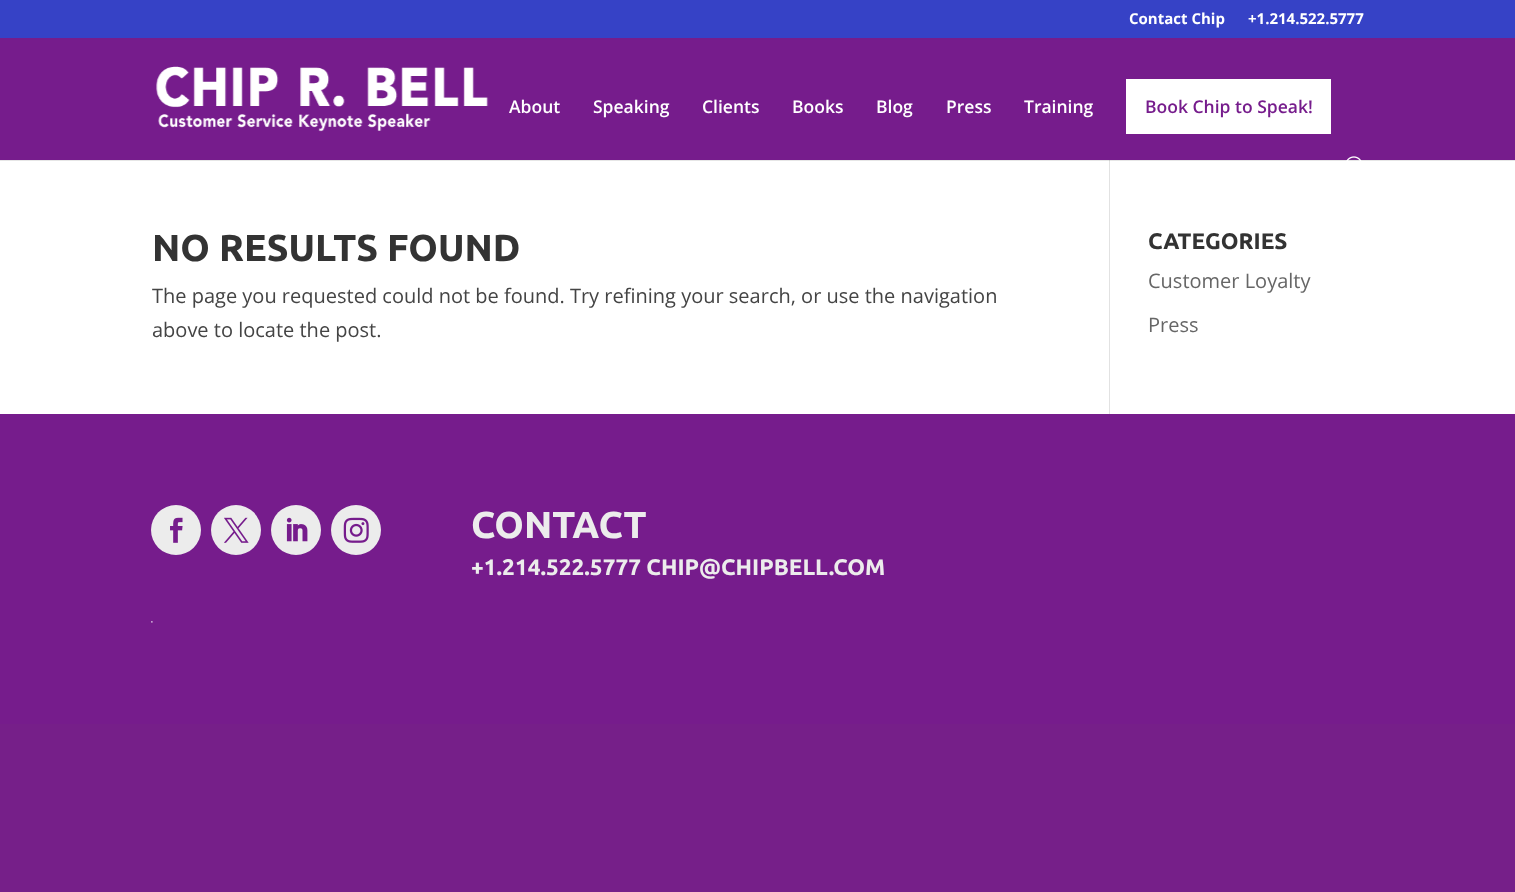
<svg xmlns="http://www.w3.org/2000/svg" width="1515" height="892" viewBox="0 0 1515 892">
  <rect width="100%" height="100%" fill="rgb(118,31,137)"/>
  <rect x="0" y="0" width="1515" height="38" fill="rgb(54,66,198)"/>
  <g font-family="Open Sans" font-size="15" font-weight="bold" fill="rgb(255,255,255)">
    <text x="1129" y="24">Contact Chip</text>
    <text x="1248" y="24">+1.214.522.5777</text>
  </g>
  <rect x="0" y="161" width="1515" height="253" fill="rgb(255,255,255)"/>
  <rect x="0" y="160" width="1515" height="1" fill="rgb(230,230,230)"/>
  <rect x="1109" y="156" width="1" height="258" fill="rgb(226,226,226)"/>
  <rect x="0" y="38" width="1515" height="122" fill="rgb(118,28,140)"/>
  <image x="156" y="66" width="333" height="66" href="pic1.png"/>
  <g font-family="Open Sans" font-size="17.5" font-weight="600" fill="rgb(255,255,255)">
    <text x="509" y="113">About</text>
    <text x="593" y="113">Speaking</text>
    <text x="702" y="113">Clients</text>
    <text x="792" y="113">Books</text>
    <text x="876" y="113">Blog</text>
    <text x="946" y="113">Press</text>
    <text x="1024" y="113">Training</text>
  </g>
  <rect x="1126" y="79" width="205" height="55" fill="rgb(255,255,255)"/>
  <text x="1145" y="113" font-family="Open Sans" font-size="17.5" font-weight="600" fill="rgb(118,28,140)">Book Chip to Speak!</text>
  <image x="1346" y="156" width="16" height="5" href="pic2.png"/>
  <rect x="1109" y="160" width="1" height="1" fill="rgb(203,203,203)"/>
  <text x="152" y="261" font-family="Ubuntu" font-size="37.5" font-weight="bold" fill="rgb(51,51,51)">NO RESULTS FOUND</text>
  <g font-family="Open Sans" font-size="20" fill="rgb(68,68,68)">
    <text>
      <tspan x="152" y="303">The page you requested could not be found. Try refining your search, or use the navigation</tspan>
      <tspan x="152" y="337">above to locate the post.</tspan>
    </text>
  </g>
  <text x="1148" y="249" font-family="Ubuntu" font-size="22.5" font-weight="bold" fill="rgb(51,51,51)">CATEGORIES</text>
  <g font-family="Open Sans" font-size="20" fill="rgb(102,102,102)">
    <text x="1148" y="288">Customer Loyalty</text>
    <text x="1148" y="332">Press</text>
  </g>
  <rect x="0" y="414" width="1515" height="310" fill="rgb(118,28,140)"/>
  <circle cx="176" cy="530" r="25" fill="rgb(236,236,236)"/>
  <image x="170" y="517" width="13" height="26" href="pic3.png"/>
  <circle cx="236" cy="530" r="25" fill="rgb(236,236,236)"/>
  <image x="224" y="517" width="25" height="26" href="pic4.png"/>
  <circle cx="296" cy="530" r="25" fill="rgb(236,236,236)"/>
  <image x="286" y="517" width="22" height="25" href="pic5.png"/>
  <circle cx="356" cy="530" r="25" fill="rgb(236,236,236)"/>
  <image x="343" y="517" width="26" height="26" href="pic6.png"/>
  <image x="151" y="621" width="2" height="2" href="pic7.png"/>
  <text x="471" y="538" font-family="Ubuntu" font-size="37.5" font-weight="bold" fill="rgb(236,236,236)">CONTACT</text>
  <text x="471" y="575" font-family="Ubuntu" font-size="22.5" font-weight="bold" fill="rgb(236,236,236)">+1.214.522.5777 CHIP@CHIPBELL.COM</text>
</svg>
